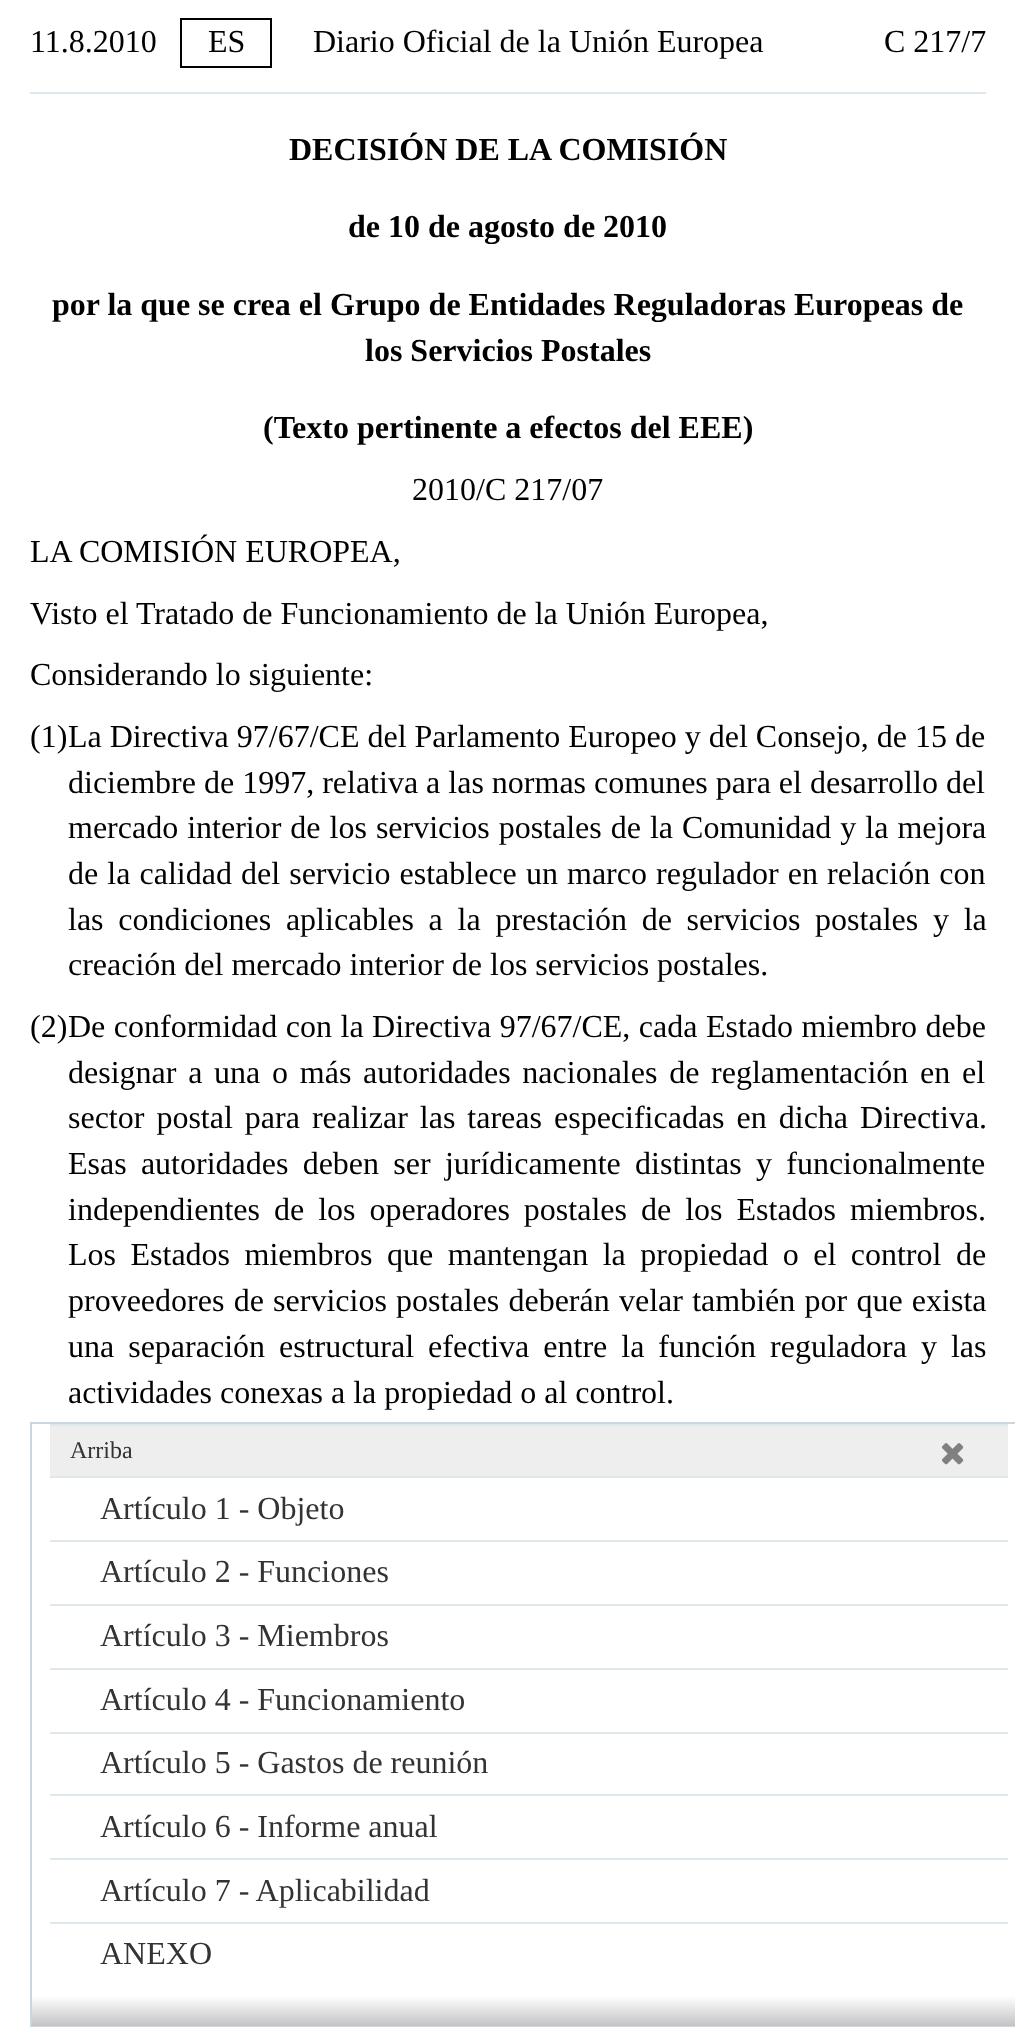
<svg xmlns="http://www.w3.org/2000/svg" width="1015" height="2027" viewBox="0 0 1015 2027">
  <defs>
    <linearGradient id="g1" gradientUnits="userSpaceOnUse" x1="530" y1="2026" x2="530" y2="1996"><stop offset="0" stop-color="rgb(195,195,197)"/><stop offset="1" stop-color="rgb(255,255,255)"/></linearGradient>
  </defs>
  <rect width="100%" height="100%" fill="rgb(255,255,255)"/>
  <text x="30" y="52" font-family="Liberation Serif" font-size="32" fill="rgb(0,0,0)">11.8.2010</text>
  <rect x="181" y="19" width="90" height="48" fill="none" stroke="rgb(0,0,0)" stroke-width="2"/>
  <g font-family="Liberation Serif" font-size="32" fill="rgb(0,0,0)">
    <text x="208" y="52">ES</text>
    <text x="313" y="52">Diario Oficial de la Unión Europea</text>
    <text x="884" y="52">C 217/7</text>
  </g>
  <rect x="30" y="92" width="956" height="2" fill="rgb(222,232,236)"/>
  <g font-family="Liberation Serif" font-size="32" font-weight="bold" fill="rgb(0,0,0)">
    <text x="289" y="160">DECISIÓN DE LA COMISIÓN</text>
    <text x="348" y="237">de 10 de agosto de 2010</text>
    <text x="52" y="315">por la que se crea el Grupo de Entidades Reguladoras Europeas de</text>
    <text x="365" y="361">los Servicios Postales</text>
    <text x="263" y="438">(Texto pertinente a efectos del EEE)</text>
  </g>
  <g font-family="Liberation Serif" font-size="32" fill="rgb(0,0,0)">
    <text x="412" y="500">2010/C 217/07</text>
    <text>
      <tspan x="30" y="562">LA COMISIÓN EUROPEA,</tspan>
      <tspan x="30" y="624">Visto el Tratado de Funcionamiento de la Unión Europea,</tspan>
      <tspan x="30" y="685">Considerando lo siguiente:</tspan>
      <tspan x="30" y="747">(1)</tspan>
    </text>
    <text>
      <tspan x="68" y="747">La Directiva 97/67/CE del Parlamento Europeo y del Consejo, de 15 de</tspan>
      <tspan x="68" y="793">diciembre de 1997, relativa a las normas comunes para el desarrollo del</tspan>
      <tspan x="68" y="838" word-spacing="1">mercado interior de los servicios postales de la Comunidad y la mejora</tspan>
      <tspan x="68" y="884" word-spacing="1.1">de la calidad del servicio establece un marco regulador en relación con</tspan>
      <tspan x="68" y="930" word-spacing="6.75">las condiciones aplicables a la prestación de servicios postales y la</tspan>
      <tspan x="68" y="975">creación del mercado interior de los servicios postales.</tspan>
    </text>
    <text x="30" y="1037">(2)</text>
    <text>
      <tspan x="68" y="1037" word-spacing="0.5">De conformidad con la Directiva 97/67/CE, cada Estado miembro debe</tspan>
      <tspan x="68" y="1083" word-spacing="3.75">designar a una o más autoridades nacionales de reglamentación en el</tspan>
      <tspan x="68" y="1128" word-spacing="4">sector postal para realizar las tareas especificadas en dicha Directiva.</tspan>
      <tspan x="68" y="1174" word-spacing="6.25">Esas autoridades deben ser jurídicamente distintas y funcionalmente</tspan>
      <tspan x="68" y="1220" word-spacing="6">independientes de los operadores postales de los Estados miembros.</tspan>
      <tspan x="68" y="1265" word-spacing="6.5">Los Estados miembros que mantengan la propiedad o el control de</tspan>
      <tspan x="68" y="1311" word-spacing="1.25">proveedores de servicios postales deberán velar también por que exista</tspan>
      <tspan x="68" y="1357" word-spacing="6">una separación estructural efectiva entre la función reguladora y las</tspan>
      <tspan x="68" y="1403">actividades conexas a la propiedad o al control.</tspan>
    </text>
  </g>
  <rect x="32" y="1997" width="983" height="29" fill="url(#g1)"/>
  <rect x="31" y="1423" width="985" height="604" fill="none" stroke="rgb(202,215,220)" stroke-width="2"/>
  <rect x="50" y="1426" width="958" height="50" fill="rgb(238,238,238)"/>
  <rect x="50" y="1424" width="958" height="2" fill="rgb(222,232,236)"/>
  <text x="70" y="1458" font-family="Liberation Serif" font-size="24" fill="rgb(51,51,51)">Arriba</text>
  <rect x="50" y="1476" width="958" height="2" fill="rgb(222,232,236)"/>
  <text x="100" y="1519" font-family="Liberation Serif" font-size="32" fill="rgb(51,51,51)">Artículo 1 - Objeto</text>
  <rect x="50" y="1540" width="958" height="2" fill="rgb(222,232,236)"/>
  <text x="100" y="1582" font-family="Liberation Serif" font-size="32" fill="rgb(51,51,51)">Artículo 2 - Funciones</text>
  <rect x="50" y="1604" width="958" height="2" fill="rgb(222,232,236)"/>
  <text x="100" y="1646" font-family="Liberation Serif" font-size="32" fill="rgb(51,51,51)">Artículo 3 - Miembros</text>
  <rect x="50" y="1668" width="958" height="2" fill="rgb(222,232,236)"/>
  <text x="100" y="1710" font-family="Liberation Serif" font-size="32" fill="rgb(51,51,51)">Artículo 4 - Funcionamiento</text>
  <rect x="50" y="1732" width="958" height="2" fill="rgb(222,232,236)"/>
  <text x="100" y="1773" font-family="Liberation Serif" font-size="32" fill="rgb(51,51,51)">Artículo 5 - Gastos de reunión</text>
  <rect x="50" y="1794" width="958" height="2" fill="rgb(222,232,236)"/>
  <text x="100" y="1837" font-family="Liberation Serif" font-size="32" fill="rgb(51,51,51)">Artículo 6 - Informe anual</text>
  <rect x="50" y="1858" width="958" height="2" fill="rgb(222,232,236)"/>
  <text x="100" y="1901" font-family="Liberation Serif" font-size="32" fill="rgb(51,51,51)">Artículo 7 - Aplicabilidad</text>
  <rect x="50" y="1922" width="958" height="2" fill="rgb(222,232,236)"/>
  <text x="100" y="1964" font-family="Liberation Serif" font-size="32" fill="rgb(51,51,51)">ANEXO</text>
  <image x="942" y="1443" width="22" height="22" href="pic1.png"/>
</svg>
